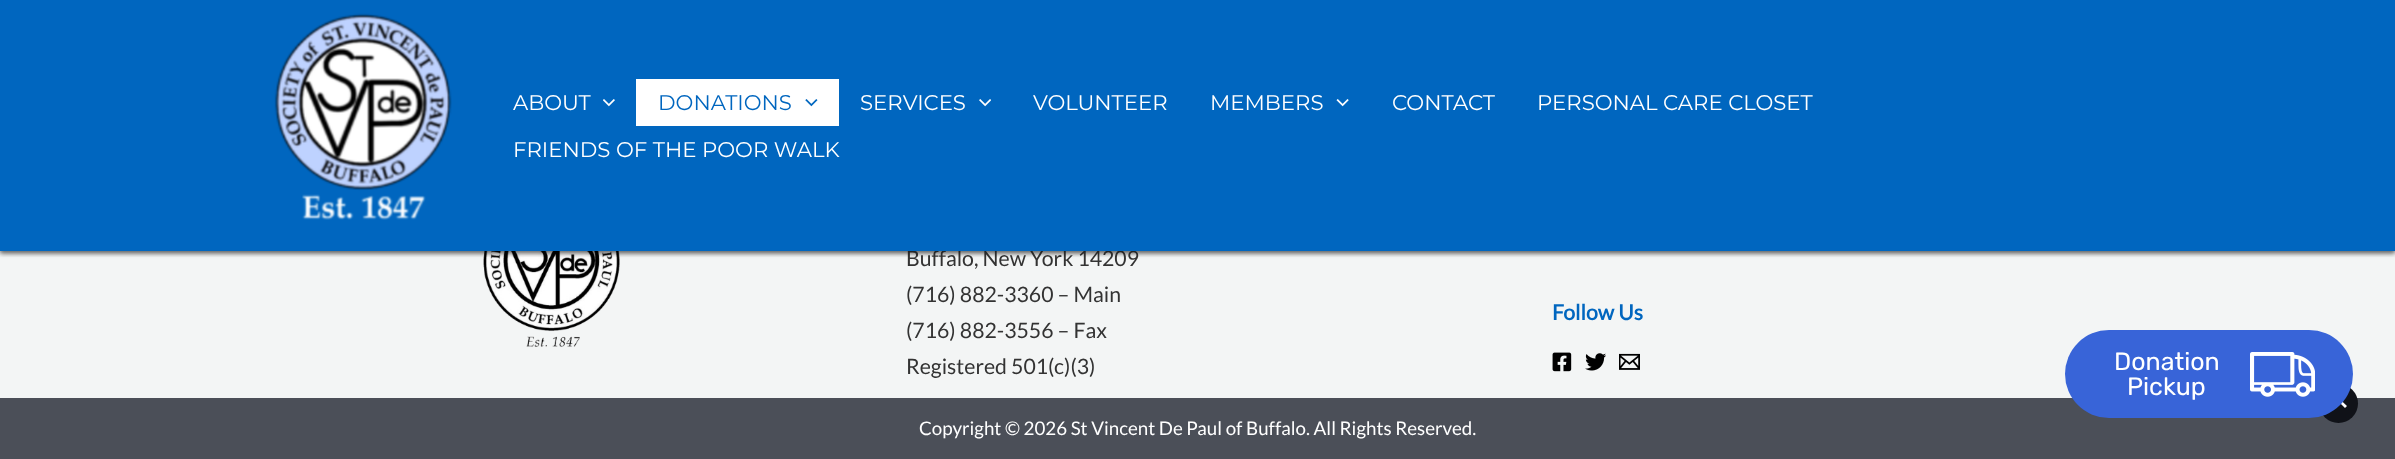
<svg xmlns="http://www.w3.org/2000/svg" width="2395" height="459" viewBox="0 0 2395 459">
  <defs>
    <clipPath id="clip1"><rect x="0" y="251" width="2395" height="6"/></clipPath>
  </defs>
  <rect width="100%" height="100%" fill="rgb(243,245,245)"/>
  <image x="483" y="251" width="137" height="96" href="pic6.png"/>
  <rect x="0" y="1" width="2395" height="252" fill="rgba(0,0,0,0.4)" filter="blur(2.5px)"/>
  <text x="906" y="266" font-family="Lato" font-size="21.25" fill="rgb(51,51,51)">Buffalo, New York 14209</text>
  <rect x="0" y="0" width="2395" height="251" fill="rgb(0,102,191)"/>
  <g clip-path="url(#clip1)">
    <rect x="0" y="1" width="2395" height="252" fill="rgba(0,0,0,0.4)" filter="blur(2.5px)"/>
  </g>
  <image x="274" y="13" width="178" height="207" href="pic1.png"/>
  <text x="513" y="110" font-family="Montserrat" font-size="21.25" font-weight="100" fill="rgb(255,255,255)">ABOUT</text>
  <image x="603" y="99" width="12" height="8" href="pic2.png"/>
  <rect x="636" y="79" width="203" height="47" fill="rgb(255,255,255)"/>
  <text x="658" y="110" font-family="Montserrat" font-size="21.25" font-weight="100" fill="rgb(0,102,191)">DONATIONS</text>
  <image x="805" y="99" width="13" height="8" href="pic3.png"/>
  <text x="860" y="110" font-family="Montserrat" font-size="21.25" font-weight="100" fill="rgb(255,255,255)">SERVICES</text>
  <image x="979" y="99" width="12" height="8" href="pic4.png"/>
  <g font-family="Montserrat" font-size="21.25" font-weight="100" fill="rgb(255,255,255)">
    <text x="1033" y="110">VOLUNTEER</text>
    <text x="1210" y="110">MEMBERS</text>
  </g>
  <image x="1336" y="99" width="13" height="8" href="pic5.png"/>
  <g font-family="Montserrat" font-size="21.25" font-weight="100" fill="rgb(255,255,255)">
    <text x="1392" y="110">CONTACT</text>
    <text x="1537" y="110">PERSONAL CARE CLOSET</text>
    <text x="513" y="157">FRIENDS OF THE POOR WALK</text>
  </g>
  <g font-family="Lato" font-size="21.25" fill="rgb(51,51,51)">
    <text>
      <tspan x="906" y="302">(716) 882-3360 – Main</tspan>
      <tspan x="906" y="338">(716) 882-3556 – Fax</tspan>
      <tspan x="906" y="374">Registered 501(c)(3)</tspan>
    </text>
  </g>
  <text x="1552" y="320" font-family="Lato" font-size="21.25" font-weight="bold" fill="rgb(0,102,191)">Follow Us</text>
  <image x="1552" y="352" width="20" height="20" href="pic7.png"/>
  <image x="1585" y="353" width="21" height="18" href="pic8.png"/>
  <image x="1619" y="353" width="21" height="17" href="pic9.png"/>
  <rect x="0" y="398" width="2395" height="61" fill="rgb(75,79,88)"/>
  <text x="919" y="435" font-family="Lato" font-size="18.75" fill="rgb(255,255,255)">Copyright © 2026 St Vincent De Paul of Buffalo. All Rights Reserved.</text>
  <circle cx="2338.5" cy="403.5" r="19.5" fill="rgb(16,18,24)"/>
  <path d="M2347 406L2338 397.5L2329.5 406L2331 408L2338 401L2345 408Z" fill="rgb(255,255,255)"/>
  <rect x="2065" y="330" width="288" height="88" rx="44" fill="rgb(56,100,216)"/>
  <g font-family="Rubik" font-size="25" fill="rgb(255,255,255)">
    <text x="2114" y="370">Donation</text>
    <text x="2127" y="395">Pickup</text>
  </g>
  <image x="2250" y="352" width="65" height="45" href="pic10.png"/>
</svg>
